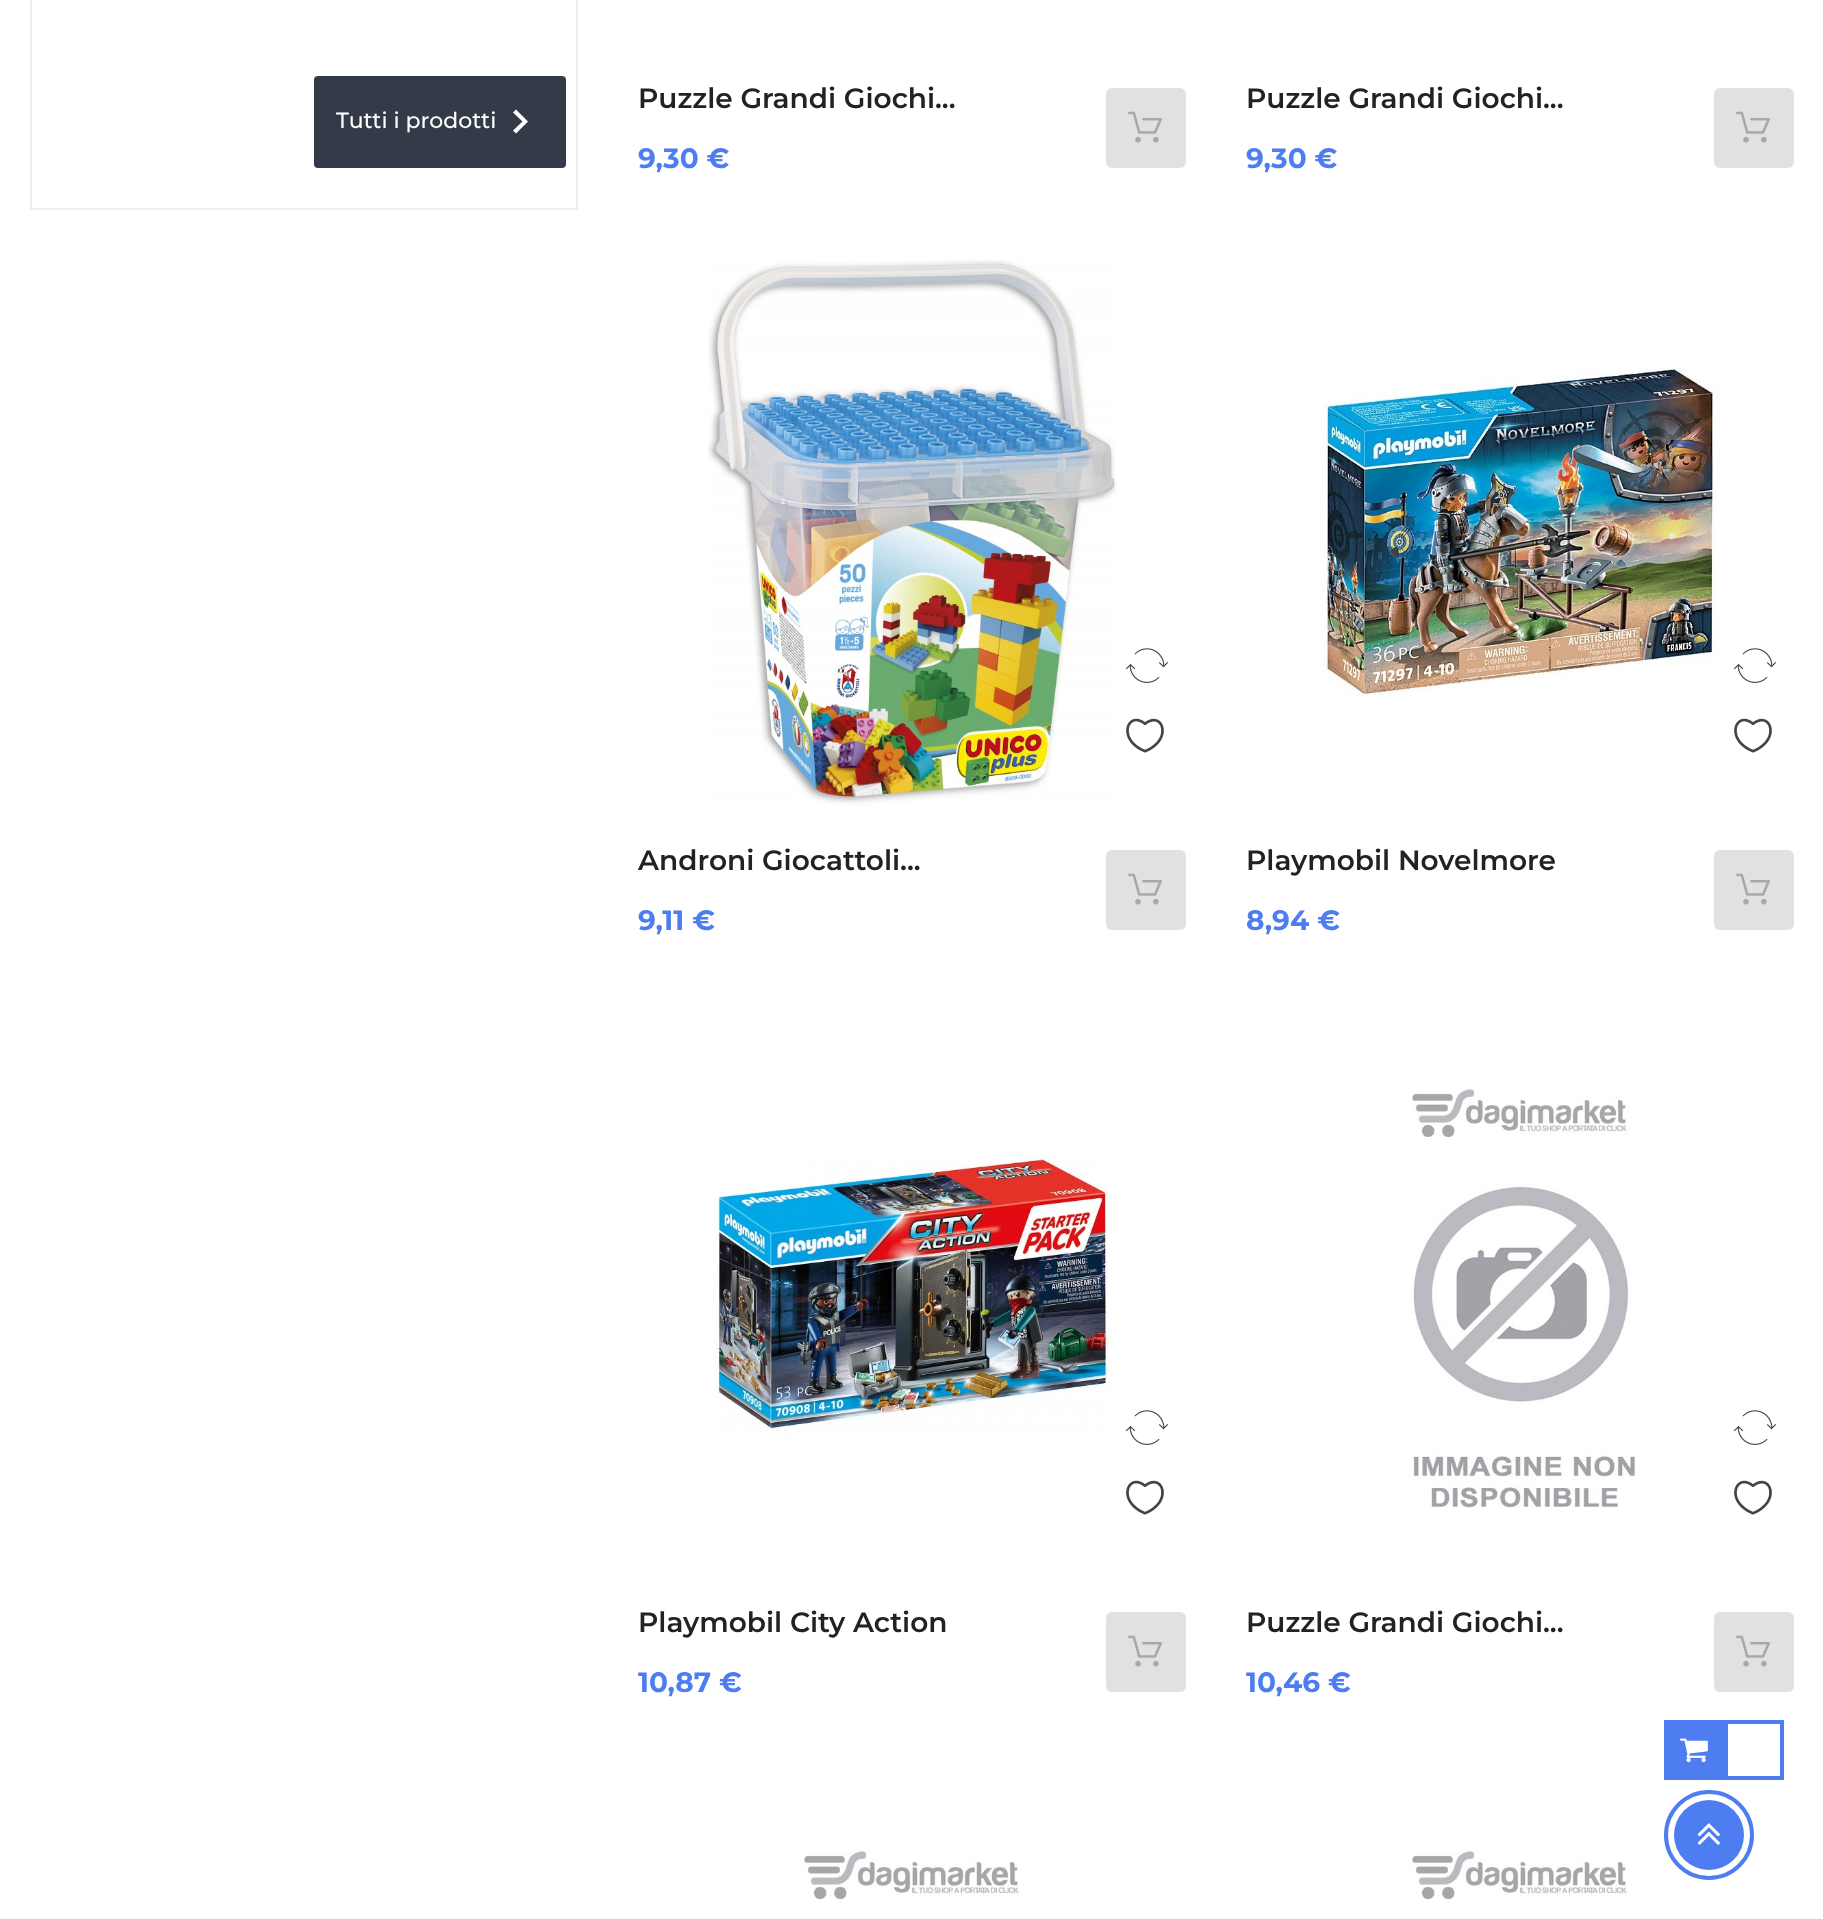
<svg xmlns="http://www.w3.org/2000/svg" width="1823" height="1919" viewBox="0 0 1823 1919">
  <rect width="100%" height="100%" fill="rgb(255,255,255)"/>
  <rect x="31" y="-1" width="546" height="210" fill="none" stroke="rgb(238,238,238)" stroke-width="2"/>
  <rect x="315" y="77" width="250" height="90" rx="3" fill="rgb(51,59,72)" stroke="rgb(51,59,72)" stroke-width="2"/>
  <text x="336" y="128" font-family="Montserrat" font-size="22" font-weight="500" fill="rgb(255,255,255)">Tutti i prodotti</text>
  <path d="M513 130.5L522.5 121.5L513 112.5L516 109.5L528 121.5L516 133.5Z" fill="rgb(255,255,255)"/>
  <text x="638" y="108" font-family="Montserrat" font-size="28" font-weight="600" fill="rgb(34,34,34)">Puzzle Grandi Giochi...</text>
  <rect x="1106" y="88" width="80" height="80" rx="6" fill="rgb(225,225,225)"/>
  <image x="1128" y="111" width="34" height="32" href="pic1.png"/>
  <text x="638" y="168" font-family="Montserrat" font-size="28" font-weight="bold" fill="rgb(77,125,240)">9,30 €</text>
  <text x="1246" y="108" font-family="Montserrat" font-size="28" font-weight="600" fill="rgb(34,34,34)">Puzzle Grandi Giochi...</text>
  <rect x="1714" y="88" width="80" height="80" rx="6" fill="rgb(225,225,225)"/>
  <image x="1736" y="111" width="34" height="32" href="pic1.png"/>
  <text x="1246" y="168" font-family="Montserrat" font-size="28" font-weight="bold" fill="rgb(77,125,240)">9,30 €</text>
  <image x="707" y="259" width="410" height="547" href="pic2.png"/>
  <image x="1126" y="648" width="42" height="35" href="pic3.png"/>
  <image x="1126" y="718" width="38" height="35" href="pic4.png"/>
  <text x="638" y="870" font-family="Montserrat" font-size="28" font-weight="600" fill="rgb(34,34,34)">Androni Giocattoli...</text>
  <rect x="1106" y="850" width="80" height="80" rx="6" fill="rgb(225,225,225)"/>
  <image x="1128" y="873" width="34" height="32" href="pic1.png"/>
  <text x="638" y="930" font-family="Montserrat" font-size="28" font-weight="bold" fill="rgb(77,125,240)">9,11 €</text>
  <image x="1322" y="367" width="395" height="329" href="pic5.png"/>
  <image x="1734" y="648" width="42" height="35" href="pic3.png"/>
  <image x="1734" y="718" width="38" height="35" href="pic4.png"/>
  <text x="1246" y="870" font-family="Montserrat" font-size="28" font-weight="600" fill="rgb(34,34,34)">Playmobil Novelmore</text>
  <rect x="1714" y="850" width="80" height="80" rx="6" fill="rgb(225,225,225)"/>
  <image x="1736" y="873" width="34" height="32" href="pic1.png"/>
  <text x="1246" y="930" font-family="Montserrat" font-size="28" font-weight="bold" fill="rgb(77,125,240)">8,94 €</text>
  <image x="714" y="1156" width="396" height="280" href="pic6.png"/>
  <image x="1126" y="1410" width="42" height="35" href="pic3.png"/>
  <image x="1126" y="1480" width="38" height="35" href="pic4.png"/>
  <text x="638" y="1632" font-family="Montserrat" font-size="28" font-weight="600" fill="rgb(34,34,34)">Playmobil City Action</text>
  <rect x="1106" y="1612" width="80" height="80" rx="6" fill="rgb(225,225,225)"/>
  <image x="1128" y="1635" width="34" height="32" href="pic1.png"/>
  <text x="638" y="1692" font-family="Montserrat" font-size="28" font-weight="bold" fill="rgb(77,125,240)">10,87 €</text>
  <image x="1411" y="1086" width="224" height="422" href="pic7.png"/>
  <image x="1734" y="1410" width="42" height="35" href="pic3.png"/>
  <image x="1734" y="1480" width="38" height="35" href="pic4.png"/>
  <text x="1246" y="1632" font-family="Montserrat" font-size="28" font-weight="600" fill="rgb(34,34,34)">Puzzle Grandi Giochi...</text>
  <rect x="1714" y="1612" width="80" height="80" rx="6" fill="rgb(225,225,225)"/>
  <image x="1736" y="1635" width="34" height="32" href="pic1.png"/>
  <text x="1246" y="1692" font-family="Montserrat" font-size="28" font-weight="bold" fill="rgb(77,125,240)">10,46 €</text>
  <image x="803" y="1848" width="217" height="52" href="pic8.png"/>
  <image x="1411" y="1848" width="217" height="52" href="pic9.png"/>
  <circle cx="1709" cy="1835" r="43" fill="none" stroke="rgb(77,125,240)" stroke-width="4"/>
  <circle cx="1709" cy="1835" r="35" fill="rgb(77,125,240)"/>
  <image x="1697" y="1823" width="23" height="22" href="pic10.png"/>
  <rect x="1664" y="1720" width="60" height="60" fill="rgb(77,125,240)"/>
  <image x="1680" y="1738" width="28" height="25" href="pic11.png"/>
  <rect x="1726" y="1722" width="56" height="56" fill="none" stroke="rgb(77,125,240)" stroke-width="4"/>
</svg>
